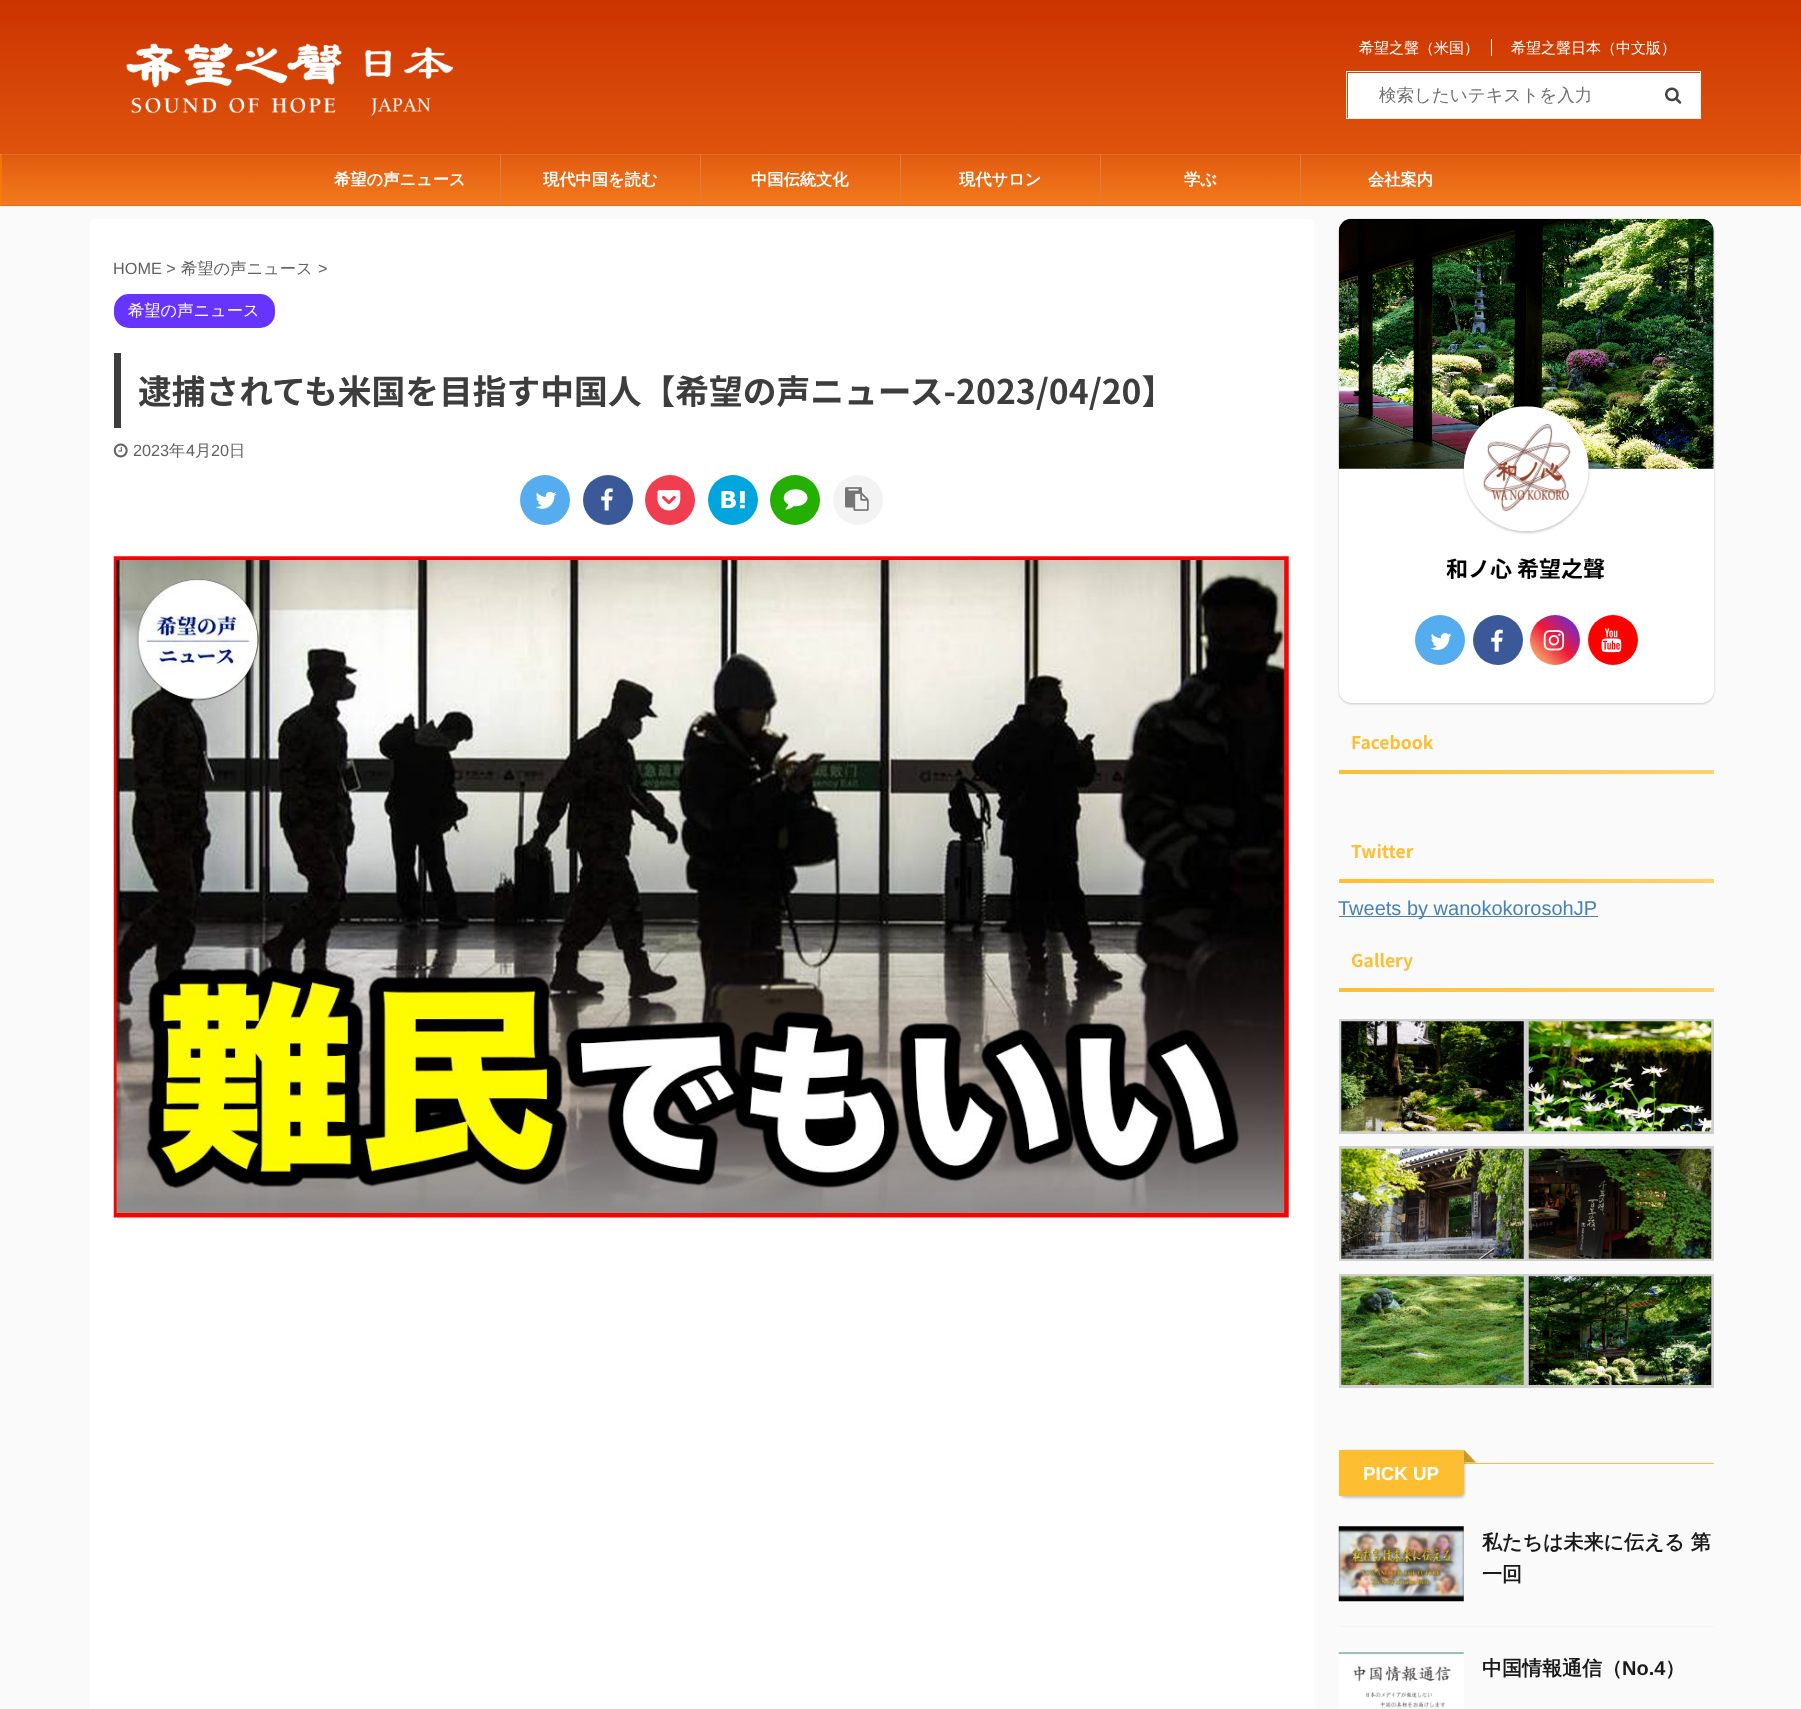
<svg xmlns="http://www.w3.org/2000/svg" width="1801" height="1709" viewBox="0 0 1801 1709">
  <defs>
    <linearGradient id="g1" gradientUnits="userSpaceOnUse" x1="901" y1="0" x2="901" y2="154"><stop offset="0" stop-color="rgb(204,51,0)"/><stop offset="1" stop-color="rgb(222,84,13)"/></linearGradient>
    <linearGradient id="g2" gradientUnits="userSpaceOnUse" x1="901" y1="105" x2="901" y2="155"><stop offset="0" stop-color="rgb(225,91,16)"/><stop offset="1" stop-color="rgb(243,122,28)"/></linearGradient>
    <linearGradient id="g3" gradientUnits="userSpaceOnUse" x1="901" y1="155" x2="901" y2="205"><stop offset="0" stop-color="rgb(225,91,16)"/><stop offset="1" stop-color="rgb(243,122,28)"/></linearGradient>
    <linearGradient id="g4" gradientUnits="userSpaceOnUse" x1="901" y1="205" x2="901" y2="255"><stop offset="0" stop-color="rgb(225,91,16)"/><stop offset="1" stop-color="rgb(243,122,28)"/></linearGradient>
    <linearGradient id="g5" gradientUnits="userSpaceOnUse" x1="1580" y1="615" x2="1530" y2="665"><stop offset="0" stop-color="rgb(73,51,247)"/><stop offset="0.5" stop-color="rgb(239,24,55)"/><stop offset="1" stop-color="rgb(251,217,128)"/></linearGradient>
    <linearGradient id="g6" gradientUnits="userSpaceOnUse" x1="1714" y1="772" x2="1339" y2="772"><stop offset="0" stop-color="rgb(254,210,113)"/><stop offset="1" stop-color="rgb(254,190,49)"/></linearGradient>
    <linearGradient id="g7" gradientUnits="userSpaceOnUse" x1="1714" y1="881" x2="1339" y2="881"><stop offset="0" stop-color="rgb(254,210,113)"/><stop offset="1" stop-color="rgb(254,190,49)"/></linearGradient>
    <linearGradient id="g8" gradientUnits="userSpaceOnUse" x1="1714" y1="989" x2="1339" y2="989"><stop offset="0" stop-color="rgb(254,210,113)"/><stop offset="1" stop-color="rgb(254,190,49)"/></linearGradient>
  </defs>
  <rect width="100%" height="100%" fill="rgb(250,250,250)"/>
  <rect x="0" y="0" width="1801" height="154" fill="url(#g1)"/>
  <image x="126" y="43" width="328" height="73" href="pic1.png"/>
  <text x="1359" y="53" font-family="WenQuanYi Zen Hei" font-size="15" font-weight="500" fill="rgb(255,255,255)">希望之聲（米国）</text>
  <rect x="1491" y="39" width="1" height="17" fill="rgb(255,255,255)"/>
  <text x="1511" y="53" font-family="WenQuanYi Zen Hei" font-size="15" font-weight="500" fill="rgb(255,255,255)">希望之聲日本（中文版）</text>
  <rect x="1346.5" y="71.5" width="354" height="47" fill="none" stroke="rgb(243,243,243)"/>
  <rect x="1348" y="73" width="352" height="45" fill="rgb(255,255,255)"/>
  <text x="1379" y="101" font-family="WenQuanYi Zen Hei" font-size="17.5" font-weight="500" fill="rgb(112,112,112)">検索したいテキストを入力</text>
  <image x="1665" y="87" width="17" height="17" href="pic2.png"/>
  <path d="M1 154H1800C1800.5 154 1801 154.5 1801 155H0C0 154.5 .5 154 1 154Z" fill="url(#g2)"/>
  <rect x="0" y="155" width="1800" height="50" fill="url(#g3)"/>
  <path d="M0 205H1801C1801 205.5 1800.5 206 1800 206H1C.5 206 0 205.5 0 205Z" fill="url(#g4)"/>
  <rect x="1" y="154" width="1800" height="1" fill="rgb(224,110,44)"/>
  <rect x="1800" y="155" width="1" height="51" fill="rgb(255,127,0)"/>
  <rect x="1" y="205" width="1800" height="1" fill="rgb(224,110,44)"/>
  <path d="M1 205.5V154.5" fill="none" stroke="rgb(255,127,0)" stroke-width="1.2"/>
  <rect x="500" y="155" width="1" height="50" fill="rgb(224,123,65)"/>
  <text x="334" y="185" font-family="WenQuanYi Zen Hei" font-size="16.25" font-weight="bold" fill="rgb(255,255,255)">希望の声ニュース</text>
  <rect x="700" y="155" width="1" height="50" fill="rgb(224,123,65)"/>
  <text x="543" y="185" font-family="WenQuanYi Zen Hei" font-size="16.25" font-weight="bold" fill="rgb(255,255,255)">現代中国を読む</text>
  <rect x="900" y="155" width="1" height="50" fill="rgb(224,123,65)"/>
  <text x="751" y="185" font-family="WenQuanYi Zen Hei" font-size="16.25" font-weight="bold" fill="rgb(255,255,255)">中国伝統文化</text>
  <rect x="1100" y="155" width="1" height="50" fill="rgb(224,123,65)"/>
  <text x="959" y="185" font-family="WenQuanYi Zen Hei" font-size="16.25" font-weight="bold" fill="rgb(255,255,255)">現代サロン</text>
  <rect x="1300" y="155" width="1" height="50" fill="rgb(224,123,65)"/>
  <g font-family="WenQuanYi Zen Hei" font-size="16.25" font-weight="bold" fill="rgb(255,255,255)">
    <text x="1184" y="185">学ぶ</text>
    <text x="1368" y="185">会社案内</text>
  </g>
  <rect x="89" y="219" width="1225" height="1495" rx="5" fill="rgb(255,255,255)"/>
  <text x="113" y="274" font-family="Liberation Sans" font-size="16.25" fill="rgb(97,97,97)">HOME &gt;</text>
  <text x="181" y="274" font-family="WenQuanYi Zen Hei" font-size="16.25" font-weight="500" fill="rgb(97,97,97)">希望の声ニュース</text>
  <text x="318" y="274" font-family="Liberation Sans" font-size="16.25" fill="rgb(97,97,97)">&gt;</text>
  <rect x="114" y="294" width="161" height="34" rx="15" fill="rgb(102,51,255)"/>
  <text x="128" y="316" font-family="WenQuanYi Zen Hei" font-size="16.25" font-weight="500" fill="rgb(255,255,255)">希望の声ニュース</text>
  <rect x="114" y="353" width="7" height="75" fill="rgb(61,61,61)"/>
  <text x="138" y="404" font-family="Noto Sans JP" font-size="33.75" font-weight="bold" fill="rgb(61,61,61)">逮捕されても米国を目指す中国人【希望の声ニュース-2023/04/20】</text>
  <image x="113" y="443" width="15" height="15" href="pic3.png"/>
  <text x="133" y="456" font-family="Liberation Sans" font-size="16.25" fill="rgb(97,97,97)">2023</text>
  <text x="169" y="456" font-family="WenQuanYi Zen Hei" font-size="16.25" font-weight="500" fill="rgb(97,97,97)">年</text>
  <text x="186" y="456" font-family="Liberation Sans" font-size="16.25" fill="rgb(97,97,97)">4</text>
  <text x="195" y="456" font-family="WenQuanYi Zen Hei" font-size="16.25" font-weight="500" fill="rgb(97,97,97)">月</text>
  <text x="211" y="456" font-family="Liberation Sans" font-size="16.25" fill="rgb(97,97,97)">20</text>
  <text x="229" y="456" font-family="WenQuanYi Zen Hei" font-size="16.25" font-weight="500" fill="rgb(97,97,97)">日</text>
  <circle cx="545" cy="500" r="25" fill="rgb(85,172,238)"/>
  <image x="535" y="491" width="22" height="18" href="pic4.png"/>
  <circle cx="608" cy="500" r="25" fill="rgb(59,89,152)"/>
  <image x="601" y="488" width="12" height="23" href="pic5.png"/>
  <circle cx="670" cy="500" r="25" fill="rgb(240,62,81)"/>
  <image x="657" y="490" width="24" height="21" href="pic6.png"/>
  <circle cx="733" cy="500" r="25" fill="rgb(0,165,222)"/>
  <image x="721" y="490" width="24" height="19" href="pic7.png"/>
  <circle cx="795" cy="500" r="25" fill="rgb(37,175,0)"/>
  <image x="783" y="489" width="25" height="21" href="pic8.png"/>
  <circle cx="858" cy="500" r="25" fill="rgb(243,243,243)"/>
  <image x="845" y="487" width="24" height="24" href="pic9.png"/>
  <image x="113" y="556" width="1176" height="662" href="pic10.png"/>
  <rect x="1339" y="220" width="375" height="484" rx="13" fill="rgba(0,0,0,0.2)" filter="blur(1px)"/>
  <rect x="1339" y="219" width="375" height="484" rx="13" fill="rgb(255,255,255)"/>
  <image x="1338" y="218" width="376" height="251" href="pic11.png"/>
  <rect x="1464" y="408" width="125" height="125" rx="62.5" fill="rgba(0,0,0,0.2)" filter="blur(1px)"/>
  <image x="1463" y="406" width="126" height="125" href="pic12.png"/>
  <text x="1446" y="577" font-family="Noto Sans JP" font-size="22" font-weight="bold" fill="rgb(0,0,0)">和ノ心 希望之聲</text>
  <circle cx="1440" cy="640" r="25" fill="rgb(85,172,238)"/>
  <image x="1430" y="633" width="22" height="17" href="pic13.png"/>
  <circle cx="1498" cy="640" r="25" fill="rgb(59,89,152)"/>
  <image x="1491" y="629" width="12" height="23" href="pic14.png"/>
  <circle cx="1555" cy="640" r="25" fill="url(#g5)"/>
  <image x="1543" y="630" width="22" height="21" href="pic15.png"/>
  <circle cx="1613" cy="640" r="25" fill="rgb(255,0,0)"/>
  <image x="1601" y="628" width="21" height="25" href="pic16.png"/>
  <text x="1351" y="749" font-family="Noto Sans JP" font-size="17.5" font-weight="bold" fill="rgb(254,190,49)">Facebook</text>
  <rect x="1339" y="770" width="375" height="4" fill="url(#g6)"/>
  <text x="1351" y="858" font-family="Noto Sans JP" font-size="17.5" font-weight="bold" fill="rgb(254,190,49)">Twitter</text>
  <rect x="1339" y="879" width="375" height="4" fill="url(#g7)"/>
  <rect x="1339" y="916" width="259" height="1" fill="rgb(70,130,180)"/>
  <text x="1338" y="915" font-family="Liberation Sans" font-size="20" fill="rgb(70,130,180)">Tweets by wanokokorosohJP</text>
  <text x="1351" y="967" font-family="Noto Sans JP" font-size="17.5" font-weight="bold" fill="rgb(254,190,49)">Gallery</text>
  <rect x="1339" y="988" width="375" height="4" fill="url(#g8)"/>
  <rect x="1340.5" y="1020.5" width="184" height="112" fill="none" stroke="rgb(207,207,207)" stroke-width="3"/>
  <image x="1341" y="1021" width="183" height="111" href="pic17.png"/>
  <rect x="1527.5" y="1020.5" width="185" height="112" fill="none" stroke="rgb(207,207,207)" stroke-width="3"/>
  <image x="1528" y="1021" width="184" height="111" href="pic18.png"/>
  <rect x="1340.5" y="1147.5" width="184" height="112" fill="none" stroke="rgb(207,207,207)" stroke-width="3"/>
  <image x="1341" y="1148" width="183" height="111" href="pic19.png"/>
  <rect x="1527.5" y="1147.5" width="185" height="112" fill="none" stroke="rgb(207,207,207)" stroke-width="3"/>
  <image x="1528" y="1148" width="184" height="111" href="pic20.png"/>
  <rect x="1340.5" y="1275.5" width="184" height="111" fill="none" stroke="rgb(207,207,207)" stroke-width="3"/>
  <image x="1341" y="1276" width="183" height="109" href="pic21.png"/>
  <rect x="1527.5" y="1275.5" width="185" height="111" fill="none" stroke="rgb(207,207,207)" stroke-width="3"/>
  <image x="1528" y="1276" width="184" height="109" href="pic22.png"/>
  <rect x="1464" y="1463" width="250" height="1" fill="rgb(254,190,49)"/>
  <rect x="1340" y="1451" width="125" height="47" rx="5" fill="rgba(0,0,0,0.2)" filter="blur(1px)"/>
  <path d="M1339 1450H1464V1491C1464 1494 1462 1496 1459 1496H1339Z" fill="rgb(254,190,49)"/>
  <path d="M1476 1462.5H1464L1470 1456Z" fill="rgb(254,190,49)"/>
  <path d="M1464 1462.5V1450L1470 1456Z" fill="rgb(254,190,49)"/>
  <path d="M1476 1462.5H1464L1470 1456Z" fill="rgba(0,0,0,0.2)"/>
  <path d="M1464 1462.5V1450L1470 1456Z" fill="rgba(0,0,0,0.2)"/>
  <text x="1363" y="1480" font-family="Liberation Sans" font-size="18.75" font-weight="bold" fill="rgb(255,255,255)">PICK UP</text>
  <rect x="1339" y="1626" width="375" height="1" fill="rgb(243,243,243)"/>
  <image x="1338" y="1526" width="126" height="76" href="pic23.png"/>
  <g font-family="WenQuanYi Zen Hei" font-size="20" font-weight="bold" fill="rgb(26,26,26)">
    <text>
      <tspan x="1482" y="1549">私たちは未来に伝える 第</tspan>
      <tspan x="1482" y="1581">一回</tspan>
    </text>
  </g>
  <image x="1338" y="1652" width="126" height="57" href="pic24.png"/>
  <text x="1482" y="1675" font-family="WenQuanYi Zen Hei" font-size="20" font-weight="bold" fill="rgb(26,26,26)">中国情報通信（</text>
  <text x="1622" y="1675" font-family="Liberation Sans" font-size="20" font-weight="bold" fill="rgb(26,26,26)">No.4</text>
  <text x="1665" y="1675" font-family="WenQuanYi Zen Hei" font-size="20" font-weight="bold" fill="rgb(26,26,26)">）</text>
</svg>
